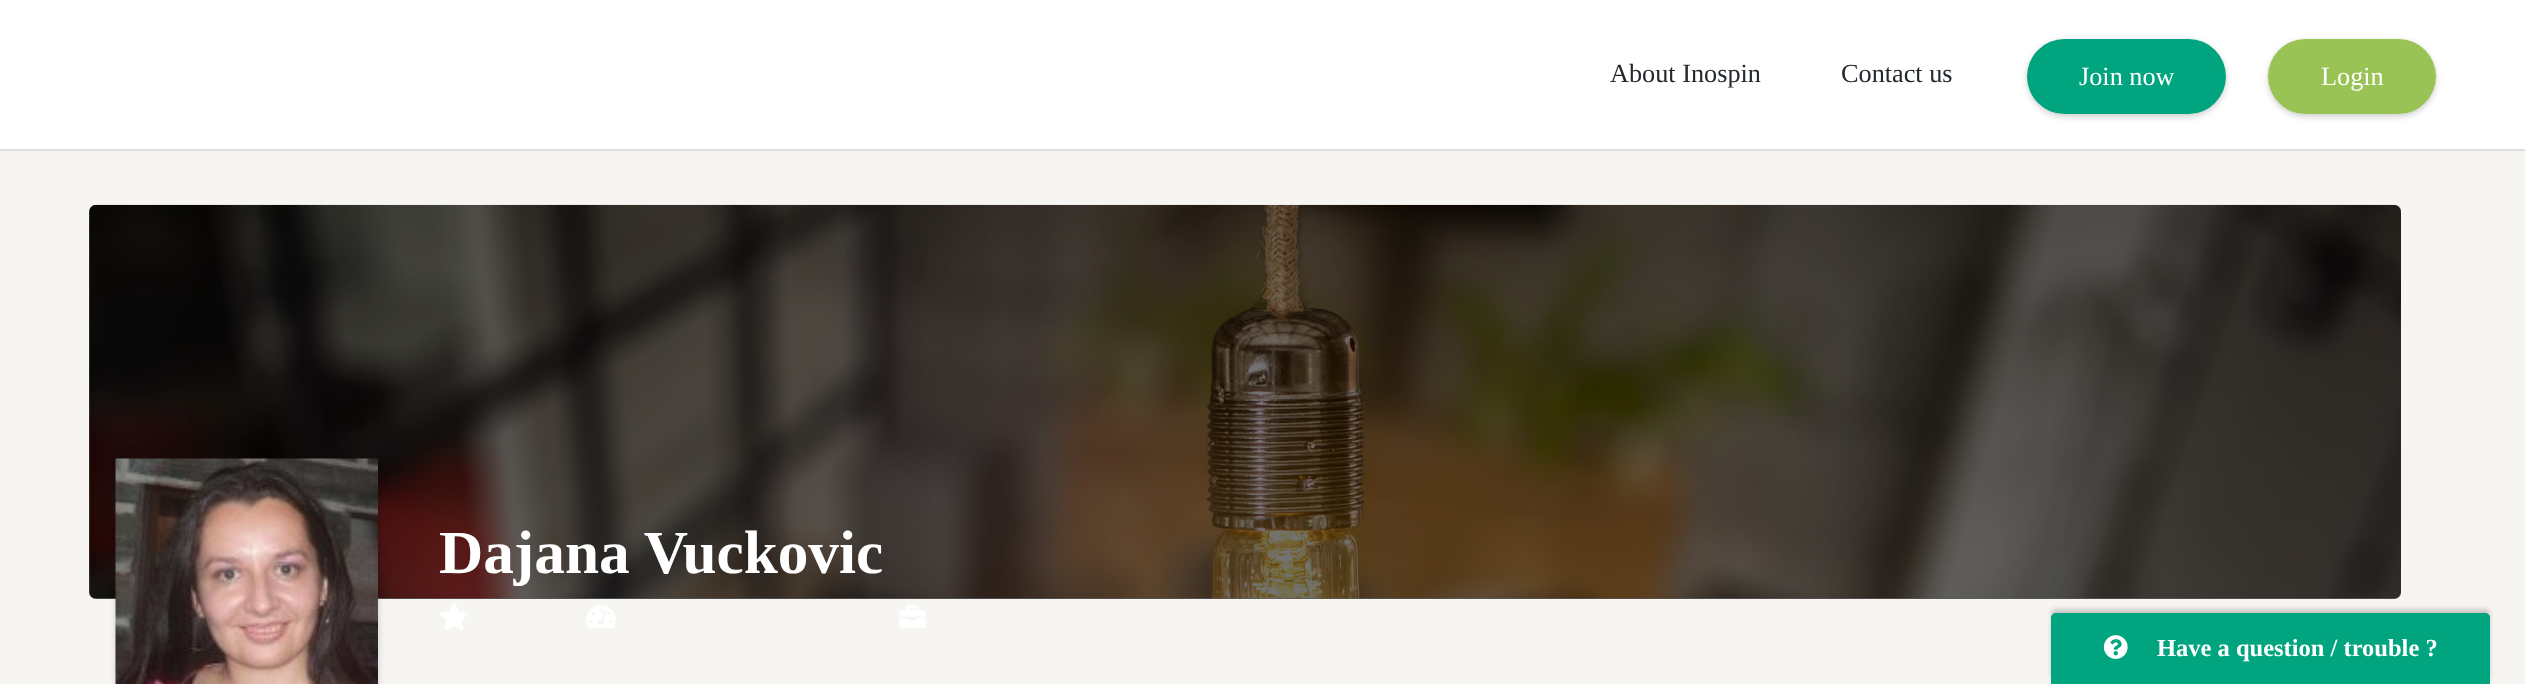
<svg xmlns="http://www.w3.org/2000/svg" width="2525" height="684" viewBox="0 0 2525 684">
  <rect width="100%" height="100%" fill="rgb(246,245,242)"/>
  <rect x="0" y="0" width="2525" height="149" fill="rgb(255,255,255)"/>
  <rect x="0" y="149" width="2525" height="2" fill="rgb(221,221,221)"/>
  <g font-family="Liberation Serif" font-size="26.25" fill="rgb(35,40,45)">
    <text x="1610" y="82">About Inospin</text>
    <text x="1841" y="82">Contact us</text>
  </g>
  <rect x="2027" y="42" width="199" height="75" rx="37.5" fill="rgba(0,0,0,0.12)" filter="blur(3.5px)"/>
  <rect x="2027" y="40" width="199" height="76" rx="38" fill="rgba(0,0,0,0.08)" filter="blur(2.5px)"/>
  <rect x="2027" y="39" width="199" height="75" rx="37.5" fill="rgb(0,165,127)"/>
  <text x="2079" y="85" font-family="Liberation Serif" font-size="26.25" fill="rgb(255,255,255)">Join now</text>
  <rect x="2268" y="42" width="168" height="75" rx="37.5" fill="rgba(0,0,0,0.12)" filter="blur(3.5px)"/>
  <rect x="2268" y="40" width="168" height="76" rx="38" fill="rgba(0,0,0,0.08)" filter="blur(2.5px)"/>
  <rect x="2268" y="39" width="168" height="75" rx="37.5" fill="rgb(154,195,85)"/>
  <text x="2321" y="85" font-family="Liberation Serif" font-size="26.25" fill="rgb(255,255,255)">Login</text>
  <rect x="89" y="205" width="2312" height="394" rx="7" fill="rgb(197,197,197)"/>
  <image x="89" y="204" width="2312" height="395" href="pic1.png"/>
  <rect x="89" y="205" width="2312" height="394" rx="7" fill="rgba(0,0,0,0.55)"/>
  <rect x="116" y="466" width="262" height="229" fill="rgba(0,0,0,0.17)" filter="blur(3.5px)"/>
  <image x="115" y="458" width="263" height="226" href="pic2.png"/>
  <text x="439" y="573" font-family="Liberation Serif" font-size="61.25" font-weight="bold" fill="rgb(255,255,255)">Dajana Vuckovic</text>
  <image x="440" y="603" width="28" height="27" href="pic3.png"/>
  <image x="586" y="605" width="30" height="23" href="pic4.png"/>
  <image x="899" y="605" width="27" height="23" href="pic5.png"/>
  <rect x="2051" y="609" width="439" height="72" rx="5" fill="rgba(0,0,0,0.18)" filter="blur(2px)"/>
  <path d="M2056 613H2485C2488 613 2490 615 2490 618V684H2051V618C2051 615 2053 613 2056 613Z" fill="rgb(0,165,127)"/>
  <image x="2103" y="635" width="25" height="24" href="pic6.png"/>
  <text x="2157" y="656" font-family="Liberation Serif" font-size="24.5" font-weight="bold" fill="rgb(255,255,255)">Have a question / trouble ?</text>
</svg>
